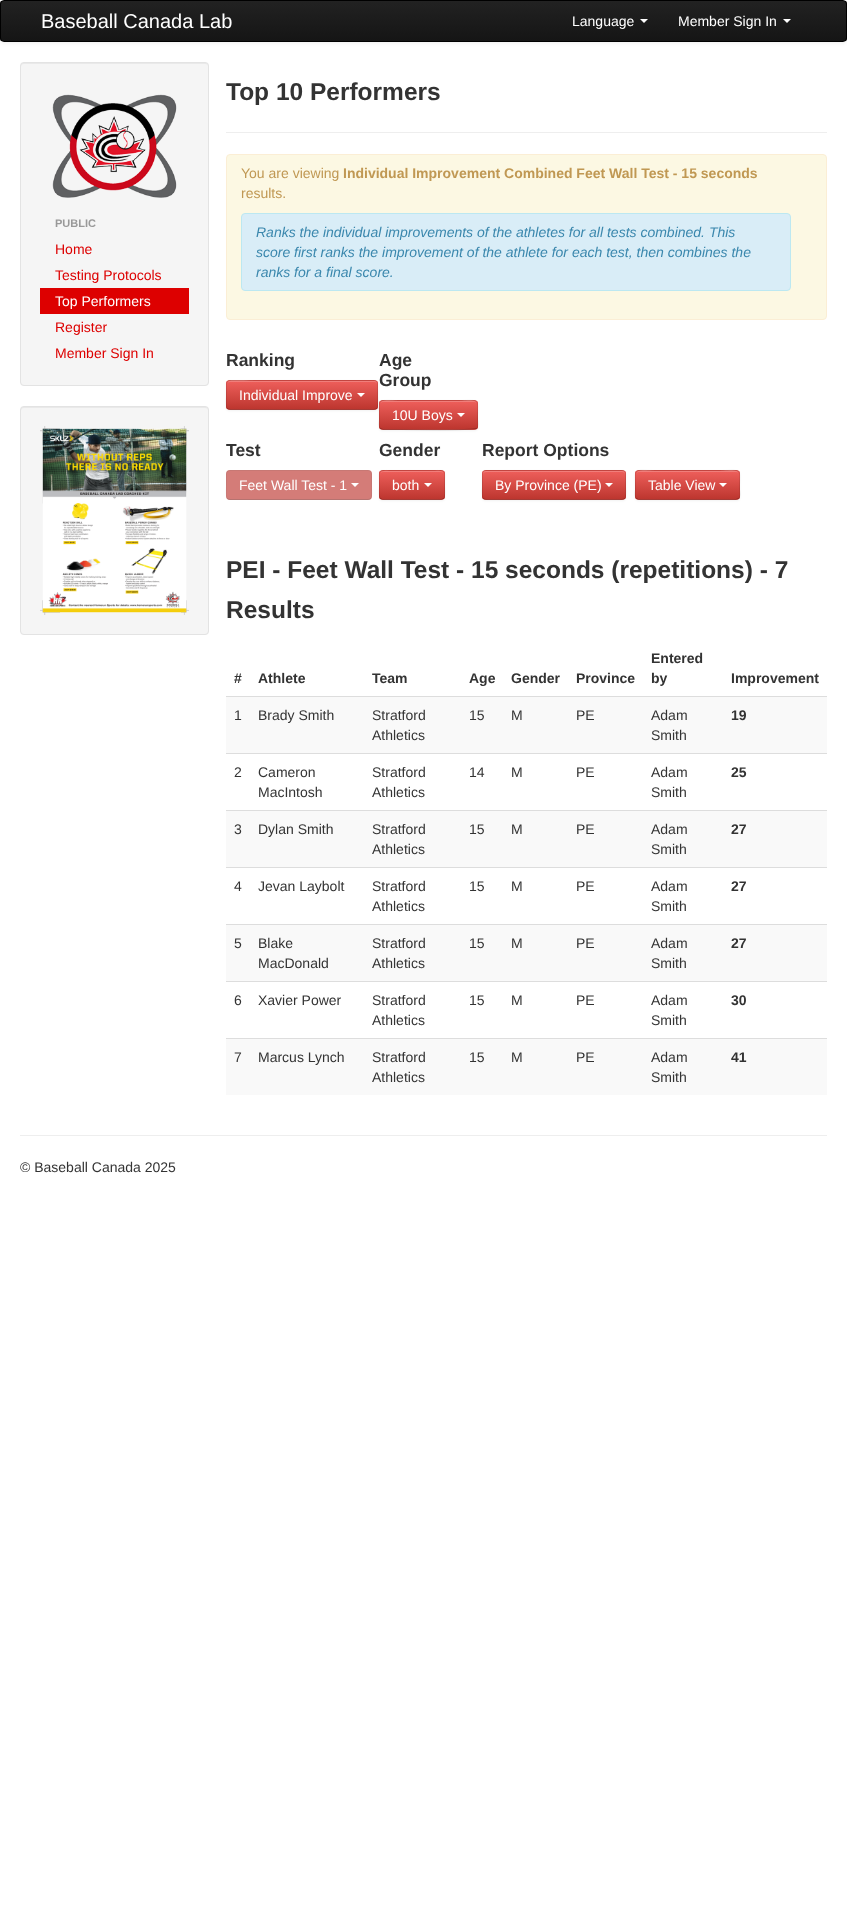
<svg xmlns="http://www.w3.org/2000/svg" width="847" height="1908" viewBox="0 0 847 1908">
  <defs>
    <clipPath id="clip1"><rect x="0" y="0" width="847" height="42" rx="4"/></clipPath>
    <linearGradient id="g1" gradientUnits="userSpaceOnUse" x1="424" y1="1" x2="424" y2="41"><stop offset="0" stop-color="rgb(34,34,34)"/><stop offset="1" stop-color="rgb(21,21,21)"/></linearGradient>
    <clipPath id="clip2"><rect x="226" y="380" width="152" height="30" rx="4"/></clipPath>
    <linearGradient id="g2" gradientUnits="userSpaceOnUse" x1="302" y1="381" x2="302" y2="409"><stop offset="0" stop-color="rgb(238,95,91)"/><stop offset="1" stop-color="rgb(189,54,47)"/></linearGradient>
    <clipPath id="clip3"><rect x="379" y="400" width="99" height="30" rx="4"/></clipPath>
    <linearGradient id="g3" gradientUnits="userSpaceOnUse" x1="429" y1="401" x2="429" y2="429"><stop offset="0" stop-color="rgb(238,95,91)"/><stop offset="1" stop-color="rgb(189,54,47)"/></linearGradient>
    <clipPath id="clip4"><rect x="379" y="470" width="66" height="30" rx="4"/></clipPath>
    <linearGradient id="g4" gradientUnits="userSpaceOnUse" x1="412" y1="471" x2="412" y2="499"><stop offset="0" stop-color="rgb(238,95,91)"/><stop offset="1" stop-color="rgb(189,54,47)"/></linearGradient>
    <clipPath id="clip5"><rect x="482" y="470" width="144" height="30" rx="4"/></clipPath>
    <linearGradient id="g5" gradientUnits="userSpaceOnUse" x1="554" y1="471" x2="554" y2="499"><stop offset="0" stop-color="rgb(238,95,91)"/><stop offset="1" stop-color="rgb(189,54,47)"/></linearGradient>
    <clipPath id="clip6"><rect x="635" y="470" width="105" height="30" rx="4"/></clipPath>
    <linearGradient id="g6" gradientUnits="userSpaceOnUse" x1="688" y1="471" x2="688" y2="499"><stop offset="0" stop-color="rgb(238,95,91)"/><stop offset="1" stop-color="rgb(189,54,47)"/></linearGradient>
  </defs>
  <rect width="100%" height="100%" fill="rgb(255,255,255)"/>
  <rect x="0" y="1" width="847" height="42" rx="4" fill="rgba(0,0,0,0.07)" filter="blur(2px)"/>
  <g clip-path="url(#clip1)">
    <rect x="0" y="1" width="847" height="40" fill="url(#g1)"/>
  </g>
  <rect x="0.5" y="0.5" width="846" height="41" rx="3.5" fill="none" stroke="rgb(0,0,0)"/>
  <text x="41" y="28" font-family="Liberation Sans" font-size="20" fill="rgb(255,255,255)">Baseball Canada Lab</text>
  <text x="572" y="26" font-family="Liberation Sans" font-size="14" fill="rgb(255,255,255)">Language</text>
  <path d="M640 19H648L644 23Z" fill="rgb(255,255,255)"/>
  <text x="678" y="26" font-family="Liberation Sans" font-size="14" fill="rgb(255,255,255)">Member Sign In</text>
  <path d="M783 19H791L787 23Z" fill="rgb(255,255,255)"/>
  <rect x="20" y="62" width="189" height="324" rx="4" fill="rgb(245,245,245)"/>
  <path d="M24 64H205C207 64 208 65 208 67C208 65 207 63 205 63H23C21 64 21 65 21 67C21 65 22 64 24 64Z" fill="rgb(233,233,233)"/>
  <rect x="20.5" y="62.5" width="188" height="323" rx="3.5" fill="none" stroke="rgb(227,227,227)"/>
  <image x="52" y="94" width="125" height="104" href="pic1.png"/>
  <text x="55" y="227" font-family="Liberation Sans" font-size="11" font-weight="bold" fill="rgb(153,153,153)">PUBLIC</text>
  <g font-family="Liberation Sans" font-size="14" fill="rgb(221,0,0)">
    <text>
      <tspan x="55" y="254">Home</tspan>
      <tspan x="55" y="280">Testing Protocols</tspan>
    </text>
  </g>
  <rect x="40" y="288" width="149" height="26" fill="rgb(221,0,0)"/>
  <text x="55" y="306" font-family="Liberation Sans" font-size="14" fill="rgb(255,255,255)">Top Performers</text>
  <g font-family="Liberation Sans" font-size="14" fill="rgb(221,0,0)">
    <text>
      <tspan x="55" y="332">Register</tspan>
      <tspan x="55" y="358">Member Sign In</tspan>
    </text>
  </g>
  <rect x="20" y="406" width="189" height="229" rx="4" fill="rgb(245,245,245)"/>
  <path d="M24 408H205C207 408 208 409 208 411C208 409 207 407 205 407H23C21 408 21 409 21 411C21 409 22 408 24 408Z" fill="rgb(233,233,233)"/>
  <rect x="20.5" y="406.5" width="188" height="228" rx="3.5" fill="none" stroke="rgb(227,227,227)"/>
  <image x="40" y="426" width="149" height="189" href="pic2.png"/>
  <text x="226" y="100" font-family="Liberation Sans" font-size="24.5" font-weight="bold" fill="rgb(51,51,51)">Top 10 Performers</text>
  <rect x="226" y="132" width="601" height="1" fill="rgb(238,238,238)"/>
  <rect x="226.5" y="154.5" width="600" height="165" rx="3.5" fill="rgb(252,248,227)" stroke="rgb(251,238,213)"/>
  <text x="241" y="178" font-family="Liberation Sans" font-size="14" fill="rgb(192,152,83)">You are viewing</text>
  <text x="343" y="178" font-family="Liberation Sans" font-size="14" font-weight="bold" fill="rgb(192,152,83)">Individual Improvement Combined Feet Wall Test - 15 seconds</text>
  <text x="241" y="198" font-family="Liberation Sans" font-size="14" fill="rgb(192,152,83)">results.</text>
  <rect x="241.5" y="213.5" width="549" height="77" rx="3.5" fill="rgb(217,237,247)" stroke="rgb(188,232,241)"/>
  <g font-family="Liberation Sans" font-size="14" font-style="italic" fill="rgb(58,135,173)">
    <text>
      <tspan x="256" y="237">Ranks the individual improvements of the athletes for all tests combined. This</tspan>
      <tspan x="256" y="257">score first ranks the improvement of the athlete for each test, then combines the</tspan>
      <tspan x="256" y="277">ranks for a final score.</tspan>
    </text>
  </g>
  <text x="226" y="366" font-family="Liberation Sans" font-size="17.5" font-weight="bold" fill="rgb(51,51,51)">Ranking</text>
  <rect x="226" y="381" width="152" height="30" rx="4" fill="rgba(0,0,0,0.05)" filter="blur(1px)"/>
  <rect x="226" y="380" width="152" height="30" rx="4" fill="rgb(218,79,73)"/>
  <g clip-path="url(#clip2)">
    <rect x="226" y="381" width="152" height="28" fill="url(#g2)"/>
  </g>
  <path d="M230 382H374C376 382 377 383 377 385C377 383 377 382 375 381H254C246 381 227 376 227 385C227 383 228 382 230 382Z" fill="rgba(255,255,255,0.2)"/>
  <path d="M376.5 408.5C376 409 375 409.5 374 409.5H230C229 409.5 228 409 227.5 408.5" fill="none" stroke="rgba(0,0,0,0.25)"/>
  <path d="M227.5 408.5C225.5 406.5 226.5 398 226.5 395V387.5C226.5 385 226 380.5 230 380.5H374C378 380.5 377.5 385 377.5 387.5V395C377.5 398 378.5 406.5 376.5 408.5" fill="none" stroke="rgba(0,0,0,0.1)"/>
  <text x="239" y="400" font-family="Liberation Sans" font-size="14" fill="rgb(255,255,255)">Individual Improve</text>
  <path d="M357 393H365L361 397Z" fill="rgb(255,255,255)"/>
  <g font-family="Liberation Sans" font-size="17.5" font-weight="bold" fill="rgb(51,51,51)">
    <text>
      <tspan x="379" y="366">Age</tspan>
      <tspan x="379" y="386">Group</tspan>
    </text>
  </g>
  <rect x="379" y="401" width="99" height="30" rx="4" fill="rgba(0,0,0,0.05)" filter="blur(1px)"/>
  <rect x="379" y="400" width="99" height="30" rx="4" fill="rgb(218,79,73)"/>
  <g clip-path="url(#clip3)">
    <rect x="379" y="401" width="99" height="28" fill="url(#g3)"/>
  </g>
  <path d="M383 402H474C476 402 477 403 477 405C477 397 462 401 459 401H398C395 401 380 397 380 405C380 403 381 402 383 402Z" fill="rgba(255,255,255,0.2)"/>
  <path d="M476.5 428.5H476C474 430.5 407 429.5 398 429.5H383L380.5 428.5" fill="none" stroke="rgba(0,0,0,0.25)"/>
  <path d="M380.5 428.5C378 426 379.5 421.5 379.5 418.5C379.5 397.5 376 400.5 398 400.5H459C481 400.5 477.5 397.5 477.5 418.5C477.5 421.5 479 426 476.5 428.5" fill="none" stroke="rgba(0,0,0,0.1)"/>
  <text x="392" y="420" font-family="Liberation Sans" font-size="14" fill="rgb(255,255,255)">10U Boys</text>
  <path d="M457 413H465L461 417Z" fill="rgb(255,255,255)"/>
  <text x="226" y="456" font-family="Liberation Sans" font-size="17.5" font-weight="bold" fill="rgb(51,51,51)">Test</text>
  <rect x="226" y="470" width="146" height="30" rx="4" fill="rgb(212,124,120)"/>
  <path d="M370.5 498.5C370 499 369 499.5 368 499.5H230C229 499.5 228 499 227.5 498.5" fill="none" stroke="rgba(89,89,89,0.25)"/>
  <path d="M227.5 498.5C225.5 496.5 226.5 488 226.5 485V477.5C226.5 475 226 470.5 230 470.5H368C372 470.5 371.5 475 371.5 477.5V485C371.5 488 372.5 496.5 370.5 498.5" fill="none" stroke="rgba(89,89,89,0.1)"/>
  <text x="239" y="490" font-family="Liberation Sans" font-size="14" fill="rgb(255,255,255)">Feet Wall Test - 1</text>
  <path d="M351 483H359L355 487Z" fill="rgb(255,255,255)"/>
  <text x="379" y="456" font-family="Liberation Sans" font-size="17.5" font-weight="bold" fill="rgb(51,51,51)">Gender</text>
  <rect x="379" y="471" width="66" height="30" rx="4" fill="rgba(0,0,0,0.05)" filter="blur(1px)"/>
  <rect x="379" y="470" width="66" height="30" rx="4" fill="rgb(218,79,73)"/>
  <g clip-path="url(#clip4)">
    <rect x="379" y="471" width="66" height="28" fill="url(#g4)"/>
  </g>
  <path d="M383 472H441C443 472 444 473 444 475C444 469 436 471 431 471H393C388 471 380 469 380 475C380 473 381 472 383 472Z" fill="rgb(241,126,123)"/>
  <path d="M443.5 498.5L441.5 499.5H382.5L380.5 498.5" fill="none" stroke="rgba(0,0,0,0.25)"/>
  <path d="M380.5 498.5C378.5 496.5 379.5 488 379.5 485C379.5 469 377 470.5 392.5 470.5H431.5C447 470.5 444.5 469 444.5 485C444.5 488 445.5 496.5 443.5 498.5" fill="none" stroke="rgba(0,0,0,0.1)"/>
  <text x="392" y="490" font-family="Liberation Sans" font-size="14" fill="rgb(255,255,255)">both</text>
  <path d="M424 483H432L428 487Z" fill="rgb(255,255,255)"/>
  <text x="482" y="456" font-family="Liberation Sans" font-size="17.5" font-weight="bold" fill="rgb(51,51,51)">Report Options</text>
  <rect x="482" y="471" width="144" height="30" rx="4" fill="rgba(0,0,0,0.05)" filter="blur(1px)"/>
  <rect x="482" y="470" width="144" height="30" rx="4" fill="rgb(218,79,73)"/>
  <g clip-path="url(#clip5)">
    <rect x="482" y="471" width="144" height="28" fill="url(#g5)"/>
  </g>
  <path d="M486 472H622C624 472 625 473 625 475V474C625 472 624 471 622 471H486C484 471 483 472 483 474V475C483 473 484 472 486 472Z" fill="rgb(241,126,123)"/>
  <path d="M624.5 498.5C624 499 623 499.5 622 499.5H486C485 499.5 484 499 483.5 498.5" fill="none" stroke="rgba(0,0,0,0.25)"/>
  <path d="M483.5 498.5C481.5 496.5 482.5 488 482.5 485V477.5C482.5 475 482 470.5 486 470.5H622C626 470.5 625.5 475 625.5 477.5V485C625.5 488 626.5 496.5 624.5 498.5" fill="none" stroke="rgba(0,0,0,0.1)"/>
  <text x="495" y="490" font-family="Liberation Sans" font-size="14" fill="rgb(255,255,255)">By Province (PE)</text>
  <path d="M605 483H613L609 487Z" fill="rgb(255,255,255)"/>
  <rect x="635" y="471" width="105" height="30" rx="4" fill="rgba(0,0,0,0.05)" filter="blur(1px)"/>
  <rect x="635" y="470" width="105" height="30" rx="4" fill="rgb(218,79,73)"/>
  <g clip-path="url(#clip6)">
    <rect x="635" y="471" width="105" height="28" fill="url(#g6)"/>
  </g>
  <path d="M639 472H736C738 472 739 473 739 475C739 467 723 471 720 471H655C652 471 636 467 636 475C636 473 637 472 639 472Z" fill="rgba(255,255,255,0.2)"/>
  <path d="M738.5 498.5L736 499.5H638.5L636.5 498.5" fill="none" stroke="rgba(0,0,0,0.25)"/>
  <path d="M636.5 498.5C634 496 635.5 491.5 635.5 488.5C635.5 467 632 470.5 655 470.5H720C743 470.5 739.5 467 739.5 488.5C739.5 491.5 741 496 738.5 498.5" fill="none" stroke="rgba(0,0,0,0.1)"/>
  <text x="648" y="490" font-family="Liberation Sans" font-size="14" fill="rgb(255,255,255)">Table View</text>
  <path d="M719 483H727L723 487Z" fill="rgb(255,255,255)"/>
  <g font-family="Liberation Sans" font-size="24.5" font-weight="bold" fill="rgb(51,51,51)">
    <text>
      <tspan x="226" y="578">PEI - Feet Wall Test - 15 seconds (repetitions) - 7</tspan>
      <tspan x="226" y="618">Results</tspan>
    </text>
  </g>
  <g font-family="Liberation Sans" font-size="14" font-weight="bold" fill="rgb(51,51,51)">
    <text x="234" y="683">#</text>
    <text x="258" y="683">Athlete</text>
    <text x="372" y="683">Team</text>
    <text x="469" y="683">Age</text>
    <text x="511" y="683">Gender</text>
    <text x="576" y="683">Province</text>
    <text>
      <tspan x="651" y="663">Entered</tspan>
      <tspan x="651" y="683">by</tspan>
    </text>
    <text x="731" y="683">Improvement</text>
  </g>
  <rect x="226" y="697" width="601" height="56" fill="rgb(249,249,249)"/>
  <g font-family="Liberation Sans" font-size="14" fill="rgb(51,51,51)">
    <text x="234" y="720">1</text>
    <text x="258" y="720">Brady Smith</text>
    <text>
      <tspan x="372" y="720">Stratford</tspan>
      <tspan x="372" y="740">Athletics</tspan>
    </text>
    <text x="469" y="720">15</text>
    <text x="511" y="720">M</text>
    <text x="576" y="720">PE</text>
    <text>
      <tspan x="651" y="720">Adam</tspan>
      <tspan x="651" y="740">Smith</tspan>
    </text>
  </g>
  <rect x="226" y="696" width="601" height="1" fill="rgb(221,221,221)"/>
  <text x="731" y="720" font-family="Liberation Sans" font-size="14" font-weight="bold" fill="rgb(51,51,51)">19</text>
  <g font-family="Liberation Sans" font-size="14" fill="rgb(51,51,51)">
    <text x="234" y="777">2</text>
    <text>
      <tspan x="258" y="777">Cameron</tspan>
      <tspan x="258" y="797">MacIntosh</tspan>
    </text>
    <text>
      <tspan x="372" y="777">Stratford</tspan>
      <tspan x="372" y="797">Athletics</tspan>
    </text>
    <text x="469" y="777">14</text>
    <text x="511" y="777">M</text>
    <text x="576" y="777">PE</text>
    <text>
      <tspan x="651" y="777">Adam</tspan>
      <tspan x="651" y="797">Smith</tspan>
    </text>
  </g>
  <rect x="226" y="753" width="601" height="1" fill="rgb(221,221,221)"/>
  <text x="731" y="777" font-family="Liberation Sans" font-size="14" font-weight="bold" fill="rgb(51,51,51)">25</text>
  <rect x="226" y="811" width="601" height="56" fill="rgb(249,249,249)"/>
  <g font-family="Liberation Sans" font-size="14" fill="rgb(51,51,51)">
    <text x="234" y="834">3</text>
    <text x="258" y="834">Dylan Smith</text>
    <text>
      <tspan x="372" y="834">Stratford</tspan>
      <tspan x="372" y="854">Athletics</tspan>
    </text>
    <text x="469" y="834">15</text>
    <text x="511" y="834">M</text>
    <text x="576" y="834">PE</text>
    <text>
      <tspan x="651" y="834">Adam</tspan>
      <tspan x="651" y="854">Smith</tspan>
    </text>
  </g>
  <rect x="226" y="810" width="601" height="1" fill="rgb(221,221,221)"/>
  <text x="731" y="834" font-family="Liberation Sans" font-size="14" font-weight="bold" fill="rgb(51,51,51)">27</text>
  <g font-family="Liberation Sans" font-size="14" fill="rgb(51,51,51)">
    <text x="234" y="891">4</text>
    <text x="258" y="891">Jevan Laybolt</text>
    <text>
      <tspan x="372" y="891">Stratford</tspan>
      <tspan x="372" y="911">Athletics</tspan>
    </text>
    <text x="469" y="891">15</text>
    <text x="511" y="891">M</text>
    <text x="576" y="891">PE</text>
    <text>
      <tspan x="651" y="891">Adam</tspan>
      <tspan x="651" y="911">Smith</tspan>
    </text>
  </g>
  <rect x="226" y="867" width="601" height="1" fill="rgb(221,221,221)"/>
  <text x="731" y="891" font-family="Liberation Sans" font-size="14" font-weight="bold" fill="rgb(51,51,51)">27</text>
  <rect x="226" y="925" width="601" height="56" fill="rgb(249,249,249)"/>
  <g font-family="Liberation Sans" font-size="14" fill="rgb(51,51,51)">
    <text x="234" y="948">5</text>
    <text>
      <tspan x="258" y="948">Blake</tspan>
      <tspan x="258" y="968">MacDonald</tspan>
    </text>
    <text>
      <tspan x="372" y="948">Stratford</tspan>
      <tspan x="372" y="968">Athletics</tspan>
    </text>
    <text x="469" y="948">15</text>
    <text x="511" y="948">M</text>
    <text x="576" y="948">PE</text>
    <text>
      <tspan x="651" y="948">Adam</tspan>
      <tspan x="651" y="968">Smith</tspan>
    </text>
  </g>
  <rect x="226" y="924" width="601" height="1" fill="rgb(221,221,221)"/>
  <text x="731" y="948" font-family="Liberation Sans" font-size="14" font-weight="bold" fill="rgb(51,51,51)">27</text>
  <g font-family="Liberation Sans" font-size="14" fill="rgb(51,51,51)">
    <text x="234" y="1005">6</text>
    <text x="258" y="1005">Xavier Power</text>
    <text>
      <tspan x="372" y="1005">Stratford</tspan>
      <tspan x="372" y="1025">Athletics</tspan>
    </text>
    <text x="469" y="1005">15</text>
    <text x="511" y="1005">M</text>
    <text x="576" y="1005">PE</text>
    <text>
      <tspan x="651" y="1005">Adam</tspan>
      <tspan x="651" y="1025">Smith</tspan>
    </text>
  </g>
  <rect x="226" y="981" width="601" height="1" fill="rgb(221,221,221)"/>
  <text x="731" y="1005" font-family="Liberation Sans" font-size="14" font-weight="bold" fill="rgb(51,51,51)">30</text>
  <rect x="226" y="1039" width="601" height="56" fill="rgb(249,249,249)"/>
  <g font-family="Liberation Sans" font-size="14" fill="rgb(51,51,51)">
    <text x="234" y="1062">7</text>
    <text x="258" y="1062">Marcus Lynch</text>
    <text>
      <tspan x="372" y="1062">Stratford</tspan>
      <tspan x="372" y="1082">Athletics</tspan>
    </text>
    <text x="469" y="1062">15</text>
    <text x="511" y="1062">M</text>
    <text x="576" y="1062">PE</text>
    <text>
      <tspan x="651" y="1062">Adam</tspan>
      <tspan x="651" y="1082">Smith</tspan>
    </text>
  </g>
  <rect x="226" y="1038" width="601" height="1" fill="rgb(221,221,221)"/>
  <text x="731" y="1062" font-family="Liberation Sans" font-size="14" font-weight="bold" fill="rgb(51,51,51)">41</text>
  <rect x="20" y="1135" width="807" height="1" fill="rgb(238,238,238)"/>
  <text x="20" y="1172" font-family="Liberation Sans" font-size="14" fill="rgb(51,51,51)">© Baseball Canada 2025</text>
</svg>
